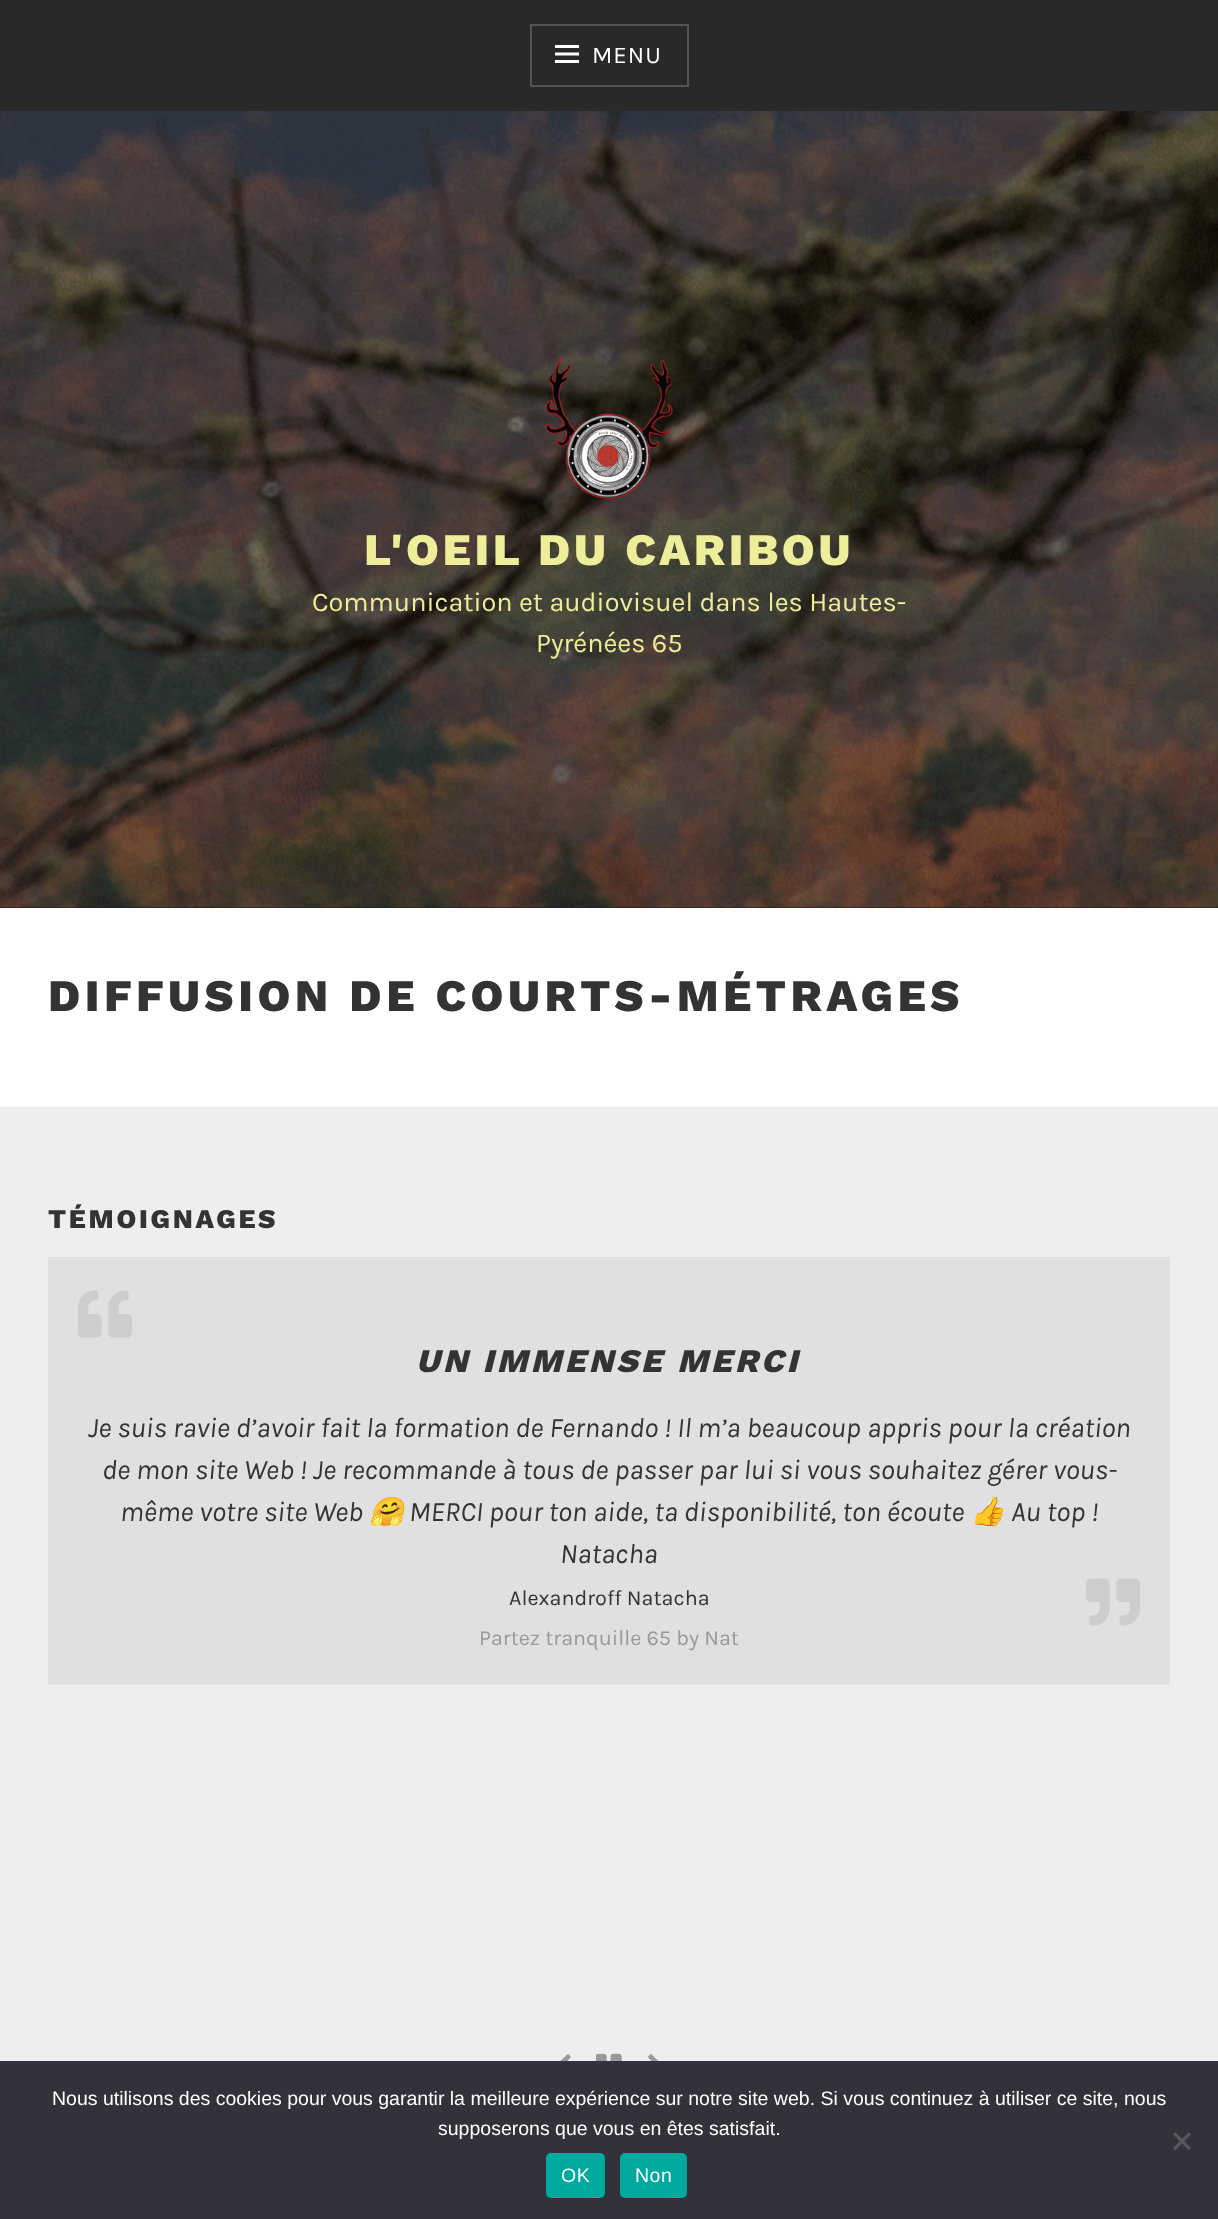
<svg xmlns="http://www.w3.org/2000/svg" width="1218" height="2219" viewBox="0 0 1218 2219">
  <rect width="100%" height="100%" fill="rgb(255,255,255)"/>
  <rect x="0" y="907" width="1218" height="1" fill="rgb(26,26,26)"/>
  <rect x="0" y="0" width="1218" height="111" fill="rgb(41,41,42)"/>
  <rect x="531" y="25" width="157" height="61" fill="none" stroke="rgb(84,84,85)" stroke-width="2"/>
  <image x="555" y="45" width="24" height="18" href="pic1.png"/>
  <text x="592" y="63" font-family="Karla" font-size="24" letter-spacing="1" fill="rgb(255,255,255)">MENU</text>
  <image x="0" y="111" width="1218" height="797" href="pic2.png"/>
  <image x="545" y="357" width="128" height="142" href="pic3.png"/>
  <text x="364" y="565" font-family="Work Sans" font-size="45" font-weight="800" letter-spacing="3.6" fill="rgb(237,237,154)">L'OEIL DU CARIBOU</text>
  <g font-family="Karla" font-size="27" fill="rgb(237,237,154)">
    <text x="312" y="611">Communication et audiovisuel dans les Hautes-</text>
    <text x="536" y="652">Pyrénées 65</text>
  </g>
  <text x="48" y="1011" font-family="Work Sans" font-size="45" font-weight="800" letter-spacing="4.5" fill="rgb(51,51,51)">DIFFUSION DE COURTS-MÉTRAGES</text>
  <rect x="0" y="1107" width="1218" height="954" fill="rgb(238,238,238)"/>
  <text x="48" y="1228" font-family="Work Sans" font-size="27" font-weight="800" letter-spacing="2.75" fill="rgb(51,51,51)">TÉMOIGNAGES</text>
  <rect x="48" y="1257" width="1122" height="428" fill="rgb(224,224,224)"/>
  <image x="78" y="1290" width="54" height="48" href="pic4.png"/>
  <text x="416" y="1372" font-family="Work Sans" font-size="33" font-weight="800" font-style="italic" letter-spacing="3.25" fill="rgb(51,51,51)">UN IMMENSE MERCI</text>
  <g font-family="Karla" font-size="28.1" font-style="italic" fill="rgb(51,51,51)">
    <text x="88" y="1437">Je suis ravie d’avoir fait la formation de Fernando ! Il m’a beaucoup appris pour la création</text>
    <text x="102" y="1479">de mon site Web ! Je recommande à tous de passer par lui si vous souhaitez gérer vous-</text>
    <text x="120" y="1521">même votre site Web</text>
  </g>
  <text x="369" y="1521" font-family="Noto Color Emoji" font-size="28.1" font-style="italic" fill="rgb(51,51,51)">🤗</text>
  <text x="409" y="1521" font-family="Karla" font-size="28.1" font-style="italic" fill="rgb(51,51,51)">MERCI pour ton aide, ta disponibilité, ton écoute</text>
  <text x="970" y="1521" font-family="Noto Color Emoji" font-size="28.1" font-style="italic" fill="rgb(51,51,51)">👍</text>
  <g font-family="Karla" font-size="28.1" font-style="italic" fill="rgb(51,51,51)">
    <text x="1011" y="1521">Au top !</text>
    <text x="560" y="1563">Natacha</text>
  </g>
  <image x="1086" y="1578" width="54" height="48" href="pic5.png"/>
  <text x="509" y="1605" font-family="Karla" font-size="21.6" fill="rgb(51,51,51)">Alexandroff Natacha</text>
  <text x="479" y="1645" font-family="Karla" font-size="21.6" fill="rgb(153,153,153)">Partez tranquille 65 by Nat</text>
  <image x="560" y="2054" width="11" height="7" href="pic6.png"/>
  <image x="596" y="2053" width="26" height="8" href="pic7.png"/>
  <image x="648" y="2054" width="11" height="7" href="pic8.png"/>
  <rect x="0" y="2061" width="1218" height="158" fill="rgb(50,50,58)"/>
  <g font-family="Liberation Sans" font-size="19.5" fill="rgb(255,255,255)">
    <text x="52" y="2105">Nous utilisons des cookies pour vous garantir la meilleure expérience sur notre site web. Si vous continuez à utiliser ce site, nous</text>
    <text x="438" y="2135">supposerons que vous en êtes satisfait.</text>
  </g>
  <path d="M1189 2132L1191 2134.5L1175 2150.5L1173 2148Z" fill="rgb(89,89,93)"/>
  <path d="M1173 2134.5L1175 2132L1191 2148L1189 2150.5Z" fill="rgb(89,89,93)"/>
  <rect x="546" y="2153" width="59" height="45" rx="5" fill="rgb(0,169,157)"/>
  <text x="561" y="2182" font-family="Liberation Sans" font-size="19.5" letter-spacing="0.5" fill="rgb(255,255,255)">OK</text>
  <rect x="620" y="2153" width="67" height="45" rx="5" fill="rgb(0,169,157)"/>
  <text x="635" y="2182" font-family="Liberation Sans" font-size="19.5" letter-spacing="0.5" fill="rgb(255,255,255)">Non</text>
</svg>
